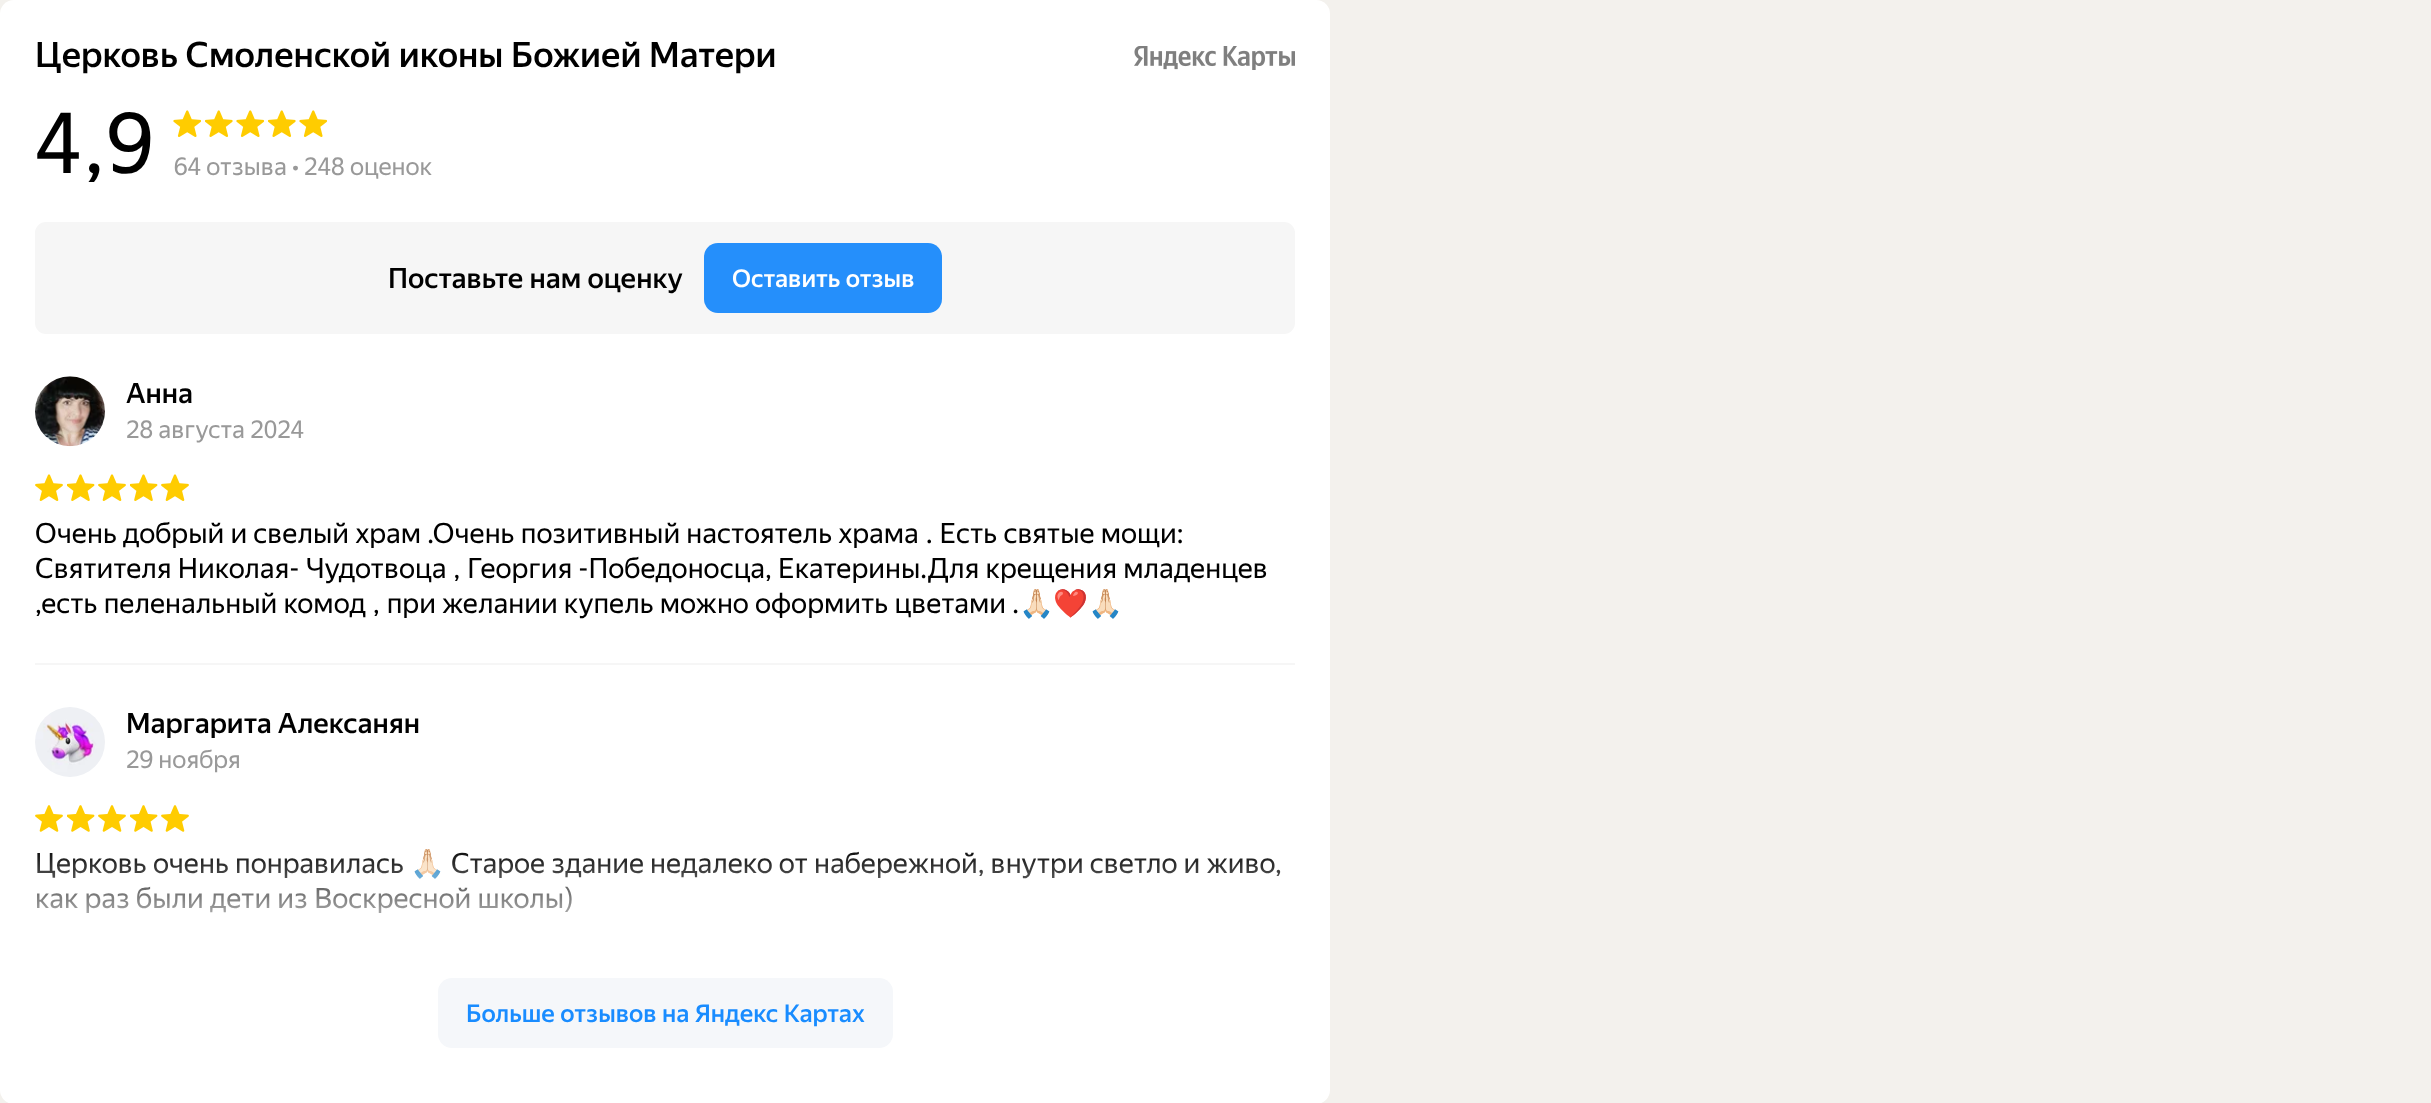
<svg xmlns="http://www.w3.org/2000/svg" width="2431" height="1103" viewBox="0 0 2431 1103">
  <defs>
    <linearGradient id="g1" gradientUnits="userSpaceOnUse" x1="665" y1="845" x2="665" y2="950"><stop offset="0" stop-color="rgb(255,255,255)" stop-opacity="0"/><stop offset="1" stop-color="rgb(255,255,255)"/></linearGradient>
  </defs>
  <rect width="100%" height="100%" fill="rgb(243,241,237)"/>
  <rect x="0" y="0" width="1330" height="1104" rx="14" fill="rgb(255,255,255)"/>
  <text x="35" y="67" font-family="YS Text" font-size="35" font-weight="500" fill="rgb(0,0,0)">Церковь Смоленской иконы Божией Матери</text>
  <image x="1134" y="46" width="161" height="24" href="pic1.png"/>
  <text x="35" y="173" font-family="YS Text" font-size="84" fill="rgb(0,0,0)">4,9</text>
  <image x="173" y="110" width="28" height="27" href="pic2.png"/>
  <image x="205" y="110" width="28" height="27" href="pic3.png"/>
  <image x="236" y="110" width="28" height="27" href="pic2.png"/>
  <image x="268" y="110" width="28" height="27" href="pic3.png"/>
  <image x="299" y="110" width="28" height="27" href="pic2.png"/>
  <text x="174" y="175" font-family="YS Text" font-size="24.5" fill="rgb(153,153,153)">64 отзыва • 248 оценок</text>
  <rect x="35" y="222" width="1260" height="112" rx="11" fill="rgb(246,246,246)"/>
  <text x="388" y="288" font-family="YS Text" font-size="28" font-weight="500" fill="rgb(0,0,0)">Поставьте нам оценку</text>
  <rect x="704" y="243" width="238" height="70" rx="14" fill="rgb(37,143,251)"/>
  <text x="732" y="287" font-family="YS Text" font-size="24.5" font-weight="500" fill="rgb(255,255,255)">Оставить отзыв</text>
  <rect x="35" y="663" width="1260" height="2" fill="rgb(246,246,246)"/>
  <image x="35" y="376" width="70" height="71" href="pic4.png"/>
  <text x="126" y="403" font-family="YS Text" font-size="28" font-weight="500" fill="rgb(0,0,0)">Анна</text>
  <text x="126" y="438" font-family="YS Text" font-size="24.5" fill="rgb(153,153,153)">28 августа 2024</text>
  <image x="35" y="474" width="28" height="27" href="pic5.png"/>
  <image x="67" y="474" width="28" height="27" href="pic6.png"/>
  <image x="98" y="474" width="28" height="27" href="pic5.png"/>
  <image x="130" y="474" width="28" height="27" href="pic6.png"/>
  <image x="161" y="474" width="28" height="27" href="pic5.png"/>
  <g font-family="YS Text" font-size="28" fill="rgb(0,0,0)">
    <text>
      <tspan x="35" y="543">Очень добрый и свелый храм .Очень позитивный настоятель храма . Есть святые мощи:</tspan>
      <tspan x="35" y="578">Святителя Николая- Чудотвоца , Георгия -Победоносца, Екатерины.Для крещения младенцев</tspan>
      <tspan x="35" y="613">,есть пеленальный комод , при желании купель можно оформить цветами .</tspan>
    </text>
  </g>
  <text x="1019" y="613" font-family="Noto Color Emoji" font-size="28" fill="rgb(0,0,0)">🙏🏻❤️🙏🏻</text>
  <image x="35" y="707" width="70" height="70" href="pic7.png"/>
  <text x="126" y="733" font-family="YS Text" font-size="28" font-weight="500" fill="rgb(0,0,0)">Маргарита Алексанян</text>
  <text x="126" y="768" font-family="YS Text" font-size="24.5" fill="rgb(153,153,153)">29 ноября</text>
  <image x="35" y="805" width="28" height="27" href="pic8.png"/>
  <image x="67" y="805" width="28" height="27" href="pic9.png"/>
  <image x="98" y="805" width="28" height="27" href="pic8.png"/>
  <image x="130" y="805" width="28" height="27" href="pic9.png"/>
  <image x="161" y="805" width="28" height="27" href="pic8.png"/>
  <text x="35" y="873" font-family="YS Text" font-size="28" fill="rgb(0,0,0)">Церковь очень понравилась</text>
  <text x="410" y="873" font-family="Noto Color Emoji" font-size="28" fill="rgb(0,0,0)">🙏🏻</text>
  <g font-family="YS Text" font-size="28" fill="rgb(0,0,0)">
    <text x="451" y="873">Старое здание недалеко от набережной, внутри светло и живо,</text>
    <text x="35" y="908">как раз были дети из Воскресной школы)</text>
  </g>
  <rect x="37" y="848" width="1244" height="65" fill="url(#g1)"/>
  <rect x="438" y="978" width="455" height="70" rx="14" fill="rgb(245,247,250)"/>
  <text x="466" y="1022" font-family="YS Text" font-size="24.5" font-weight="500" fill="rgb(25,140,255)">Больше отзывов на Яндекс Картах</text>
</svg>
